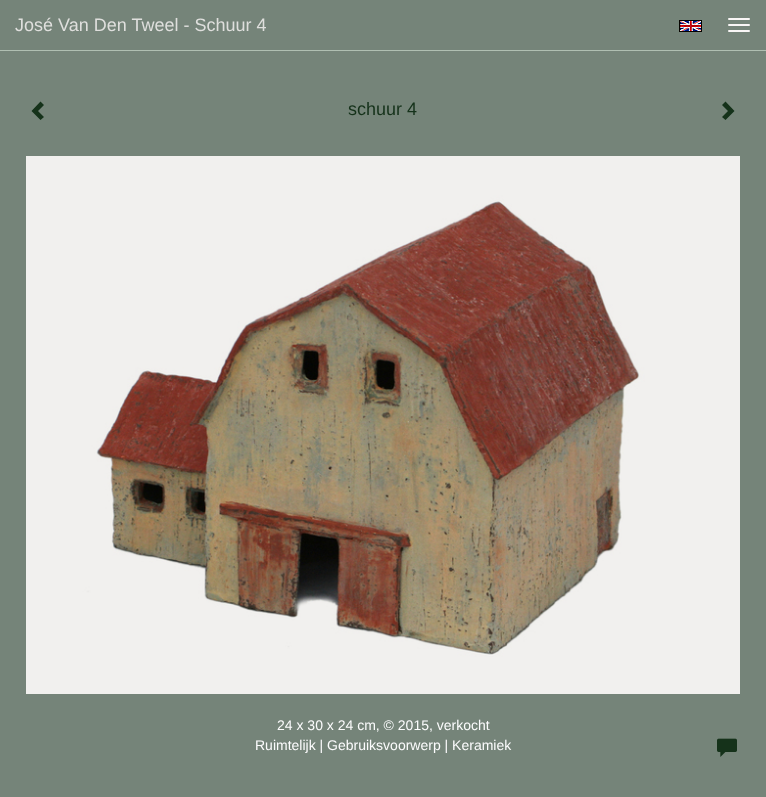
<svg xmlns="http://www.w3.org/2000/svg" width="766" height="797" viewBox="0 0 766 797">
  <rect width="100%" height="100%" fill="rgb(117,132,121)"/>
  <rect x="0" y="50" width="766" height="1" fill="rgb(176,191,178)"/>
  <text x="15" y="31" font-family="Liberation Sans" font-size="18" fill="rgb(223,223,221)">José Van Den Tweel - Schuur 4</text>
  <rect x="728" y="18" width="22" height="2" rx="1" fill="rgb(249,246,246)"/>
  <rect x="728" y="24" width="22" height="2" rx="1" fill="rgb(249,246,246)"/>
  <rect x="728" y="30" width="22" height="2" rx="1" fill="rgb(249,246,246)"/>
  <image x="679" y="20" width="23" height="12" href="pic1.png"/>
  <path d="M44 105L38 111L44 117L40.5 120L31.5 111L40.5 101.5Z" fill="rgb(21,50,26)"/>
  <text x="348" y="115" font-family="Liberation Sans" font-size="18" fill="rgb(21,50,26)">schuur 4</text>
  <path d="M734.5 111L725.5 120L722 117L728 111L722 105L725.5 101.5Z" fill="rgb(21,50,26)"/>
  <image x="26" y="156" width="714" height="538" href="pic2.png"/>
  <g font-family="Liberation Sans" font-size="14" fill="rgb(252,252,253)">
    <text x="277" y="730">24 x 30 x 24 cm, © 2015, verkocht</text>
    <text x="255" y="750">Ruimtelijk | Gebruiksvoorwerp | Keramiek</text>
  </g>
  <image x="717" y="738" width="20" height="19" href="pic3.png"/>
</svg>
